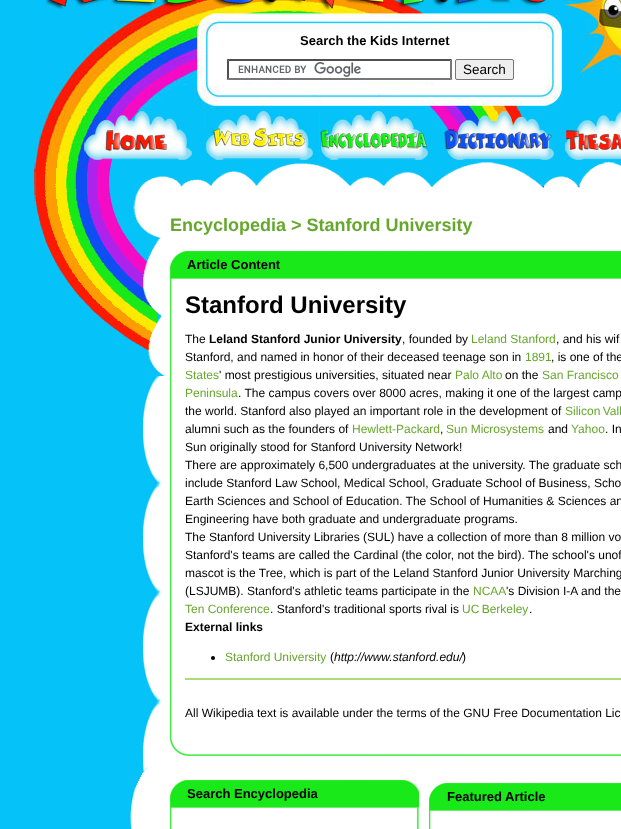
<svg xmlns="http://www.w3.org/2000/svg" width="621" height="829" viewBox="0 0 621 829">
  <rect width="100%" height="100%" fill="rgb(5,194,249)"/>
  <image x="34" y="0" width="587" height="160" href="pic1.png"/>
  <image x="45" y="0" width="509" height="10" href="pic2.png"/>
  <rect x="234" y="46" width="208" height="36" fill="rgb(255,255,255)"/>
  <text x="300" y="45" font-family="Liberation Sans" font-size="13" font-weight="bold" fill="rgb(0,0,0)">Search the Kids Internet</text>
  <image x="238" y="62" width="123" height="15" href="pic3.png"/>
  <path d="M227 59H452L450 61H229Z" fill="rgb(79,79,79)"/>
  <path d="M452 59V80L450 78V61Z" fill="rgb(118,118,118)"/>
  <path d="M452 80H227L229 78H450Z" fill="rgb(118,118,118)"/>
  <path d="M227 80V59L229 61V78Z" fill="rgb(79,79,79)"/>
  <rect x="455.5" y="59.5" width="58" height="20" rx="1.5" fill="rgb(239,239,239)" stroke="rgb(118,118,118)"/>
  <text x="463" y="74" font-family="Liberation Sans" font-size="13.5" fill="rgb(0,0,0)">Search</text>
  <image x="84" y="111" width="112" height="49" href="pic4.png"/>
  <image x="205" y="111" width="115" height="49" href="pic5.png"/>
  <image x="320" y="111" width="123" height="49" href="pic6.png"/>
  <image x="443" y="111" width="112" height="49" href="pic7.png"/>
  <image x="565" y="111" width="56" height="49" href="pic8.png"/>
  <image x="34" y="160" width="96" height="216" href="pic9.png"/>
  <image x="130" y="376" width="491" height="453" href="pic10.png"/>
  <image x="130" y="160" width="491" height="216" href="pic11.png"/>
  <image x="130" y="767" width="31" height="62" href="pic12.png"/>
  <text x="170" y="231" font-family="Liberation Sans" font-size="18" font-weight="bold" fill="rgb(102,167,45)">Encyclopedia &gt; Stanford University</text>
  <image x="170" y="251" width="451" height="28" href="pic13.png"/>
  <text x="187" y="269" font-family="Liberation Sans" font-size="13" font-weight="bold" fill="rgb(0,0,0)">Article Content</text>
  <image x="170" y="279" width="2" height="461" href="pic14.png"/>
  <text x="185" y="313" font-family="Liberation Sans" font-size="24" font-weight="bold" fill="rgb(0,0,0)">Stanford University</text>
  <text x="185" y="343" font-family="Liberation Sans" font-size="12" fill="rgb(0,0,0)">The</text>
  <text x="209" y="343" font-family="Liberation Sans" font-size="12" font-weight="bold" fill="rgb(0,0,0)">Leland Stanford Junior University</text>
  <text x="402" y="343" font-family="Liberation Sans" font-size="12" fill="rgb(0,0,0)">, founded by</text>
  <text x="471" y="343" font-family="Liberation Sans" font-size="12" fill="rgb(102,167,45)">Leland Stanford</text>
  <g font-family="Liberation Sans" font-size="12" fill="rgb(0,0,0)">
    <text x="556" y="343">, and his wif</text>
    <text x="185" y="361">Stanford, and named in honor of their deceased teenage son in</text>
  </g>
  <text x="525" y="361" font-family="Liberation Sans" font-size="12" fill="rgb(102,167,45)">1891</text>
  <text x="551" y="361" font-family="Liberation Sans" font-size="12" fill="rgb(0,0,0)">, is one of the</text>
  <text x="185" y="379" font-family="Liberation Sans" font-size="12" fill="rgb(102,167,45)">States</text>
  <text x="219" y="379" font-family="Liberation Sans" font-size="12" fill="rgb(0,0,0)">' most prestigious universities, situated near</text>
  <text x="455" y="379" font-family="Liberation Sans" font-size="12" fill="rgb(102,167,45)">Palo Alto</text>
  <text x="505" y="379" font-family="Liberation Sans" font-size="12" fill="rgb(0,0,0)">on the</text>
  <g font-family="Liberation Sans" font-size="12" fill="rgb(102,167,45)">
    <text x="542" y="379">San Francisco</text>
    <text x="185" y="397">Peninsula</text>
  </g>
  <g font-family="Liberation Sans" font-size="12" fill="rgb(0,0,0)">
    <text x="238" y="397">. The campus covers over 8000 acres, making it one of the largest camp</text>
    <text x="185" y="415">the world. Stanford also played an important role in the development of</text>
  </g>
  <text x="565" y="415" word-spacing="-1" font-family="Liberation Sans" font-size="12" fill="rgb(102,167,45)">Silicon Vall</text>
  <text x="185" y="433" font-family="Liberation Sans" font-size="12" fill="rgb(0,0,0)">alumni such as the founders of</text>
  <text x="352" y="433" font-family="Liberation Sans" font-size="12" fill="rgb(102,167,45)">Hewlett-Packard</text>
  <text x="440" y="433" font-family="Liberation Sans" font-size="12" fill="rgb(0,0,0)">,</text>
  <text x="446" y="433" font-family="Liberation Sans" font-size="12" fill="rgb(102,167,45)">Sun Microsystems</text>
  <text x="548" y="433" font-family="Liberation Sans" font-size="12" fill="rgb(0,0,0)">and</text>
  <text x="571" y="433" font-family="Liberation Sans" font-size="12" fill="rgb(102,167,45)">Yahoo</text>
  <g font-family="Liberation Sans" font-size="12" fill="rgb(0,0,0)">
    <text x="605" y="433">. In</text>
    <text>
      <tspan x="185" y="451">Sun originally stood for Stanford University Network!</tspan>
      <tspan x="185" y="469">There are approximately 6,500 undergraduates at the university. The graduate sch</tspan>
      <tspan x="185" y="487">include Stanford Law School, Medical School, Graduate School of Business, Scho</tspan>
      <tspan x="185" y="505">Earth Sciences and School of Education. The School of Humanities &amp; Sciences an</tspan>
      <tspan x="185" y="523">Engineering have both graduate and undergraduate programs.</tspan>
      <tspan x="185" y="541">The Stanford University Libraries (SUL) have a collection of more than 8 million vo</tspan>
      <tspan x="185" y="559">Stanford's teams are called the Cardinal (the color, not the bird). The school's unof</tspan>
      <tspan x="185" y="577">mascot is the Tree, which is part of the Leland Stanford Junior University Marching</tspan>
      <tspan x="185" y="595">(LSJUMB). Stanford's athletic teams participate in the</tspan>
    </text>
  </g>
  <text x="473" y="595" font-family="Liberation Sans" font-size="12" fill="rgb(102,167,45)">NCAA</text>
  <text x="506" y="595" font-family="Liberation Sans" font-size="12" fill="rgb(0,0,0)">'s Division I-A and the</text>
  <text x="185" y="613" font-family="Liberation Sans" font-size="12" fill="rgb(102,167,45)">Ten Conference</text>
  <text x="270" y="613" font-family="Liberation Sans" font-size="12" fill="rgb(0,0,0)">. Stanford's traditional sports rival is</text>
  <text x="462" y="613" word-spacing="-1" font-family="Liberation Sans" font-size="12" fill="rgb(102,167,45)">UC Berkeley</text>
  <text x="529" y="613" font-family="Liberation Sans" font-size="12" fill="rgb(0,0,0)">.</text>
  <text x="185" y="631" font-family="Liberation Sans" font-size="12" font-weight="bold" fill="rgb(0,0,0)">External links</text>
  <text x="225" y="661" font-family="Liberation Sans" font-size="12" fill="rgb(102,167,45)">Stanford University</text>
  <text x="330" y="661" font-family="Liberation Sans" font-size="12" fill="rgb(0,0,0)">(</text>
  <text x="334" y="661" font-family="Liberation Sans" font-size="12" font-style="italic" fill="rgb(0,0,0)">http://www.stanford.edu/</text>
  <circle cx="213" cy="658" r="2" fill="rgb(0,0,0)"/>
  <text x="462" y="661" font-family="Liberation Sans" font-size="12" fill="rgb(0,0,0)">)</text>
  <rect x="185" y="678" width="436" height="2" fill="rgb(173,219,117)"/>
  <text x="185" y="717" font-family="Liberation Sans" font-size="12" fill="rgb(0,0,0)">All Wikipedia text is available under the terms of the GNU Free Documentation Lic</text>
  <image x="170" y="740" width="451" height="16" href="pic15.png"/>
  <image x="170" y="780" width="249" height="28" href="pic16.png"/>
  <text x="187" y="798" font-family="Liberation Sans" font-size="13" font-weight="bold" fill="rgb(0,0,0)">Search Encyclopedia</text>
  <image x="170" y="808" width="249" height="21" href="pic17.png"/>
  <image x="429" y="783" width="192" height="28" href="pic18.png"/>
  <text x="447" y="801" font-family="Liberation Sans" font-size="13" font-weight="bold" fill="rgb(0,0,0)">Featured Article</text>
  <image x="429" y="811" width="2" height="18" href="pic19.png"/>
</svg>
